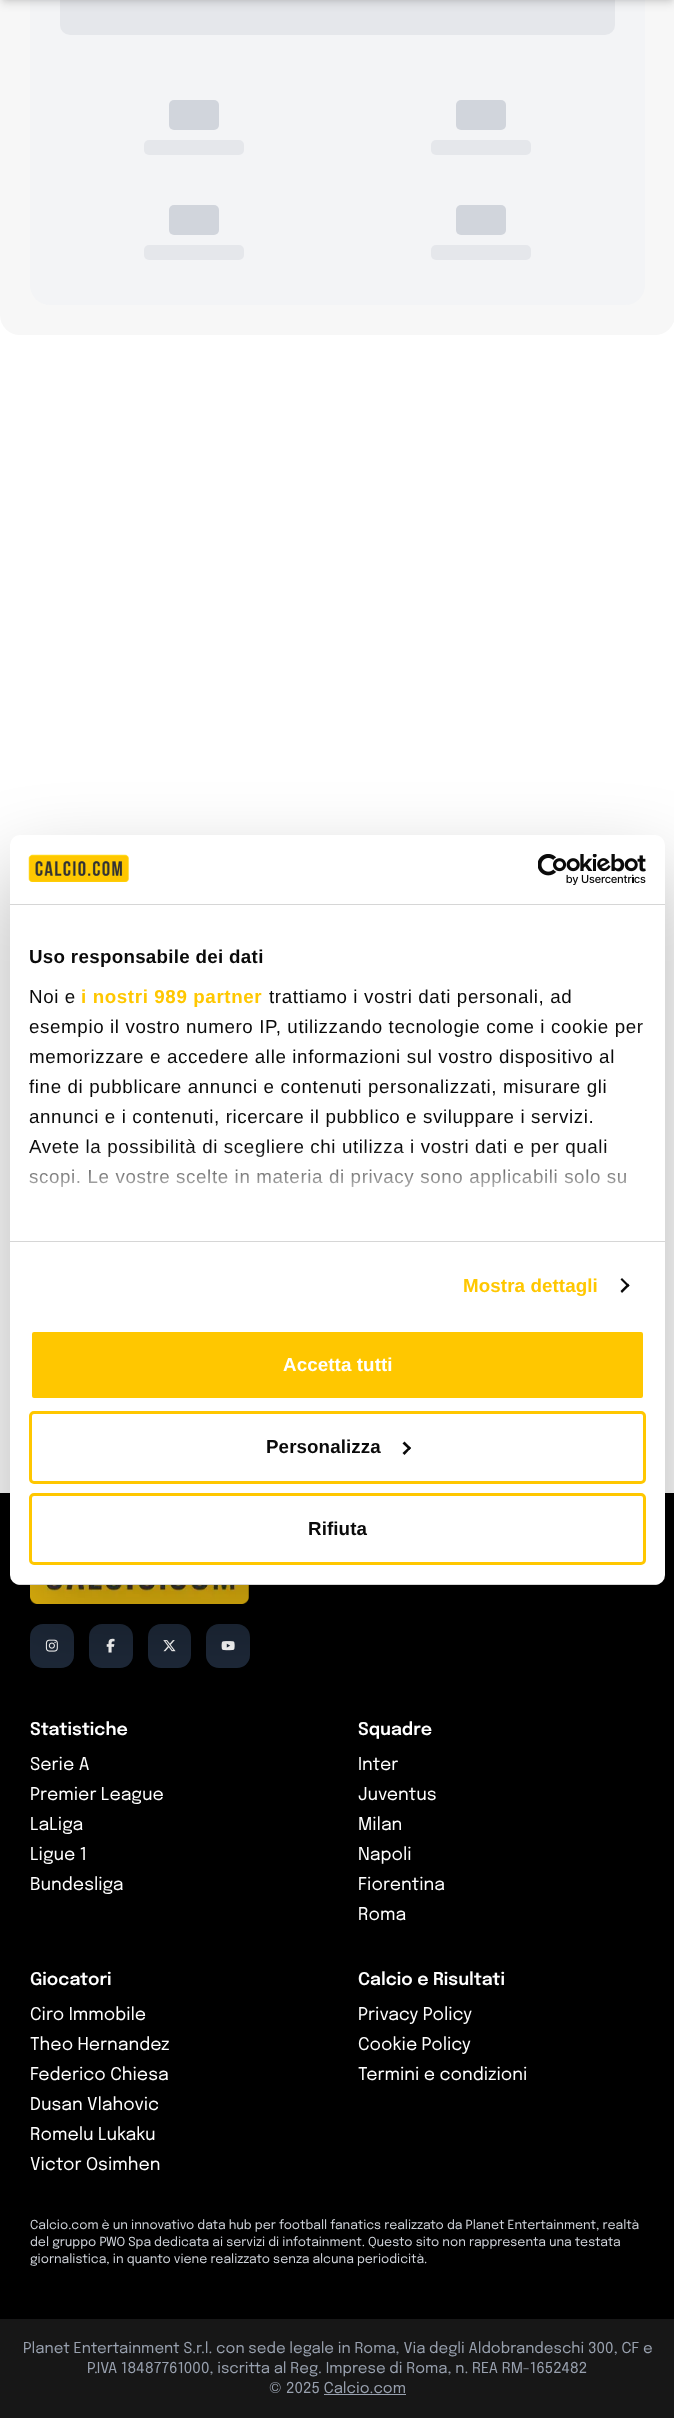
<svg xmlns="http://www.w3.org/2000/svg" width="674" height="2418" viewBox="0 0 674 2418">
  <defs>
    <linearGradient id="g1" gradientUnits="userSpaceOnUse" x1="329" y1="1241" x2="329" y2="1147"><stop offset="0" stop-color="rgb(255,255,255)"/><stop offset="0.5" stop-color="rgb(255,255,255)" stop-opacity="0.8"/><stop offset="1" stop-color="rgb(255,255,255)" stop-opacity="0"/></linearGradient>
    <clipPath id="clip1"><rect x="10" y="835" width="655" height="750" rx="10"/></clipPath>
  </defs>
  <rect width="100%" height="100%" fill="rgb(255,255,255)"/>
  <rect x="0" y="-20" width="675" height="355" rx="20" fill="rgb(247,247,247)"/>
  <rect x="30" y="-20" width="615" height="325" rx="20" fill="rgb(243,244,246)"/>
  <rect x="60" y="-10" width="555" height="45" rx="10" fill="rgb(229,231,235)"/>
  <rect x="169" y="100" width="50" height="30" rx="5" fill="rgb(209,213,220)"/>
  <rect x="144" y="140" width="100" height="15" rx="5" fill="rgb(229,231,235)"/>
  <rect x="456" y="100" width="50" height="30" rx="5" fill="rgb(209,213,220)"/>
  <rect x="431" y="140" width="100" height="15" rx="5" fill="rgb(229,231,235)"/>
  <rect x="169" y="205" width="50" height="30" rx="5" fill="rgb(209,213,220)"/>
  <rect x="144" y="245" width="100" height="15" rx="5" fill="rgb(229,231,235)"/>
  <rect x="456" y="205" width="50" height="30" rx="5" fill="rgb(209,213,220)"/>
  <rect x="431" y="245" width="100" height="15" rx="5" fill="rgb(229,231,235)"/>
  <rect x="3" y="-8" width="670" height="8" fill="rgba(0,0,0,0.1)" filter="blur(2.5px)"/>
  <rect x="1" y="-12" width="673" height="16" fill="rgba(0,0,0,0.1)" filter="blur(4px)"/>
  <rect x="0" y="1493" width="674" height="826" fill="rgb(0,0,0)"/>
  <image x="30" y="1585" width="219" height="19" href="pic3.png"/>
  <rect x="30" y="1624" width="44" height="44" rx="13" fill="rgb(30,41,57)"/>
  <image x="45" y="1639" width="13" height="13" href="pic4.png"/>
  <rect x="89" y="1624" width="44" height="44" rx="13" fill="rgb(30,41,57)"/>
  <image x="106" y="1638" width="9" height="15" href="pic5.png"/>
  <rect x="148" y="1624" width="43" height="44" rx="13" fill="rgb(30,41,57)"/>
  <image x="163" y="1640" width="13" height="12" href="pic6.png"/>
  <rect x="206" y="1624" width="44" height="44" rx="13" fill="rgb(30,41,57)"/>
  <image x="221" y="1641" width="14" height="10" href="pic7.png"/>
  <rect x="10" y="875" width="655" height="750" rx="10" fill="rgba(0,0,0,0.3)" filter="blur(42.5px)"/>
  <rect x="10" y="835" width="655" height="750" rx="10" fill="rgb(255,255,255)"/>
  <rect x="10" y="904" width="655" height="1" fill="rgb(214,214,214)"/>
  <image x="28" y="854" width="101" height="28" href="pic1.png"/>
  <image x="538" y="854" width="108" height="31" href="pic2.png"/>
  <rect x="10" y="1241" width="655" height="1" fill="rgb(214,214,214)"/>
  <text x="29" y="963" font-family="Liberation Sans" font-size="18.75" font-weight="bold" letter-spacing="0.3" fill="rgb(10,10,10)">Uso responsabile dei dati</text>
  <text x="29" y="1003" font-family="Liberation Sans" font-size="18.75" letter-spacing="0.62" fill="rgb(10,10,10)">Noi e</text>
  <text x="81" y="1003" font-family="Liberation Sans" font-size="18.75" font-weight="bold" letter-spacing="0.62" fill="rgb(255,199,0)">i nostri 989 partner</text>
  <g font-family="Liberation Sans" font-size="18.75" letter-spacing="0.62" fill="rgb(10,10,10)">
    <text x="269" y="1003">trattiamo i vostri dati personali, ad</text>
    <text>
      <tspan x="29" y="1033">esempio il vostro numero IP, utilizzando tecnologie come i cookie per</tspan>
      <tspan x="29" y="1063">memorizzare e accedere alle informazioni sul vostro dispositivo al</tspan>
      <tspan x="29" y="1093">fine di pubblicare annunci e contenuti personalizzati, misurare gli</tspan>
      <tspan x="29" y="1123">annunci e i contenuti, ricercare il pubblico e sviluppare i servizi.</tspan>
      <tspan x="29" y="1153">Avete la possibilità di scegliere chi utilizza i vostri dati e per quali</tspan>
      <tspan x="29" y="1183">scopi. Le vostre scelte in materia di privacy sono applicabili solo su</tspan>
    </text>
  </g>
  <rect x="29" y="1148" width="598" height="39" fill="url(#g1)"/>
  <text x="463" y="1292" font-family="Liberation Sans" font-size="18.75" font-weight="bold" letter-spacing="0.1" fill="rgb(255,199,0)">Mostra dettagli</text>
  <path d="M622 1278L629.5 1285.5L628 1287L620.5 1279.5Z" fill="rgb(10,10,10)"/>
  <path d="M628 1283.5L629.5 1285.5L622 1293L620.5 1291Z" fill="rgb(10,10,10)"/>
  <g clip-path="url(#clip1)">
    <rect x="10" y="1584" width="655" height="1" fill="rgb(214,214,214)"/>
  </g>
  <rect x="30.5" y="1330.5" width="614" height="69" rx="3.5" fill="rgb(255,199,0)" stroke="rgb(255,255,255)" stroke-width="3"/>
  <text x="283" y="1371" font-family="Liberation Sans" font-size="18.75" font-weight="bold" letter-spacing="0.1" fill="rgb(255,255,255)">Accetta tutti</text>
  <rect x="30.5" y="1412.5" width="614" height="70" rx="3.5" fill="none" stroke="rgb(255,199,0)" stroke-width="3"/>
  <text x="266" y="1453" font-family="Liberation Sans" font-size="18.75" font-weight="bold" letter-spacing="0.1" fill="rgb(10,10,10)">Personalizza</text>
  <path d="M404.5 1441.5L411 1448L409.5 1450L402.5 1443.5Z" fill="rgb(10,10,10)"/>
  <path d="M409.5 1446.5L411 1448L404.5 1455L402.5 1453Z" fill="rgb(10,10,10)"/>
  <rect x="30.5" y="1494.5" width="614" height="69" rx="3.5" fill="none" stroke="rgb(255,199,0)" stroke-width="3"/>
  <text x="308" y="1535" font-family="Liberation Sans" font-size="18.75" font-weight="bold" letter-spacing="0.1" fill="rgb(10,10,10)">Rifiuta</text>
  <text x="30" y="1735" font-family="Epilogue" font-size="17.5" font-weight="600" fill="rgb(255,255,255)">Statistiche</text>
  <g font-family="Epilogue" font-size="17.5" fill="rgb(255,255,255)">
    <text>
      <tspan x="30" y="1770">Serie A</tspan>
      <tspan x="30" y="1800">Premier League</tspan>
      <tspan x="30" y="1830">LaLiga</tspan>
      <tspan x="30" y="1860">Ligue 1</tspan>
      <tspan x="30" y="1890">Bundesliga</tspan>
    </text>
  </g>
  <text x="358" y="1735" font-family="Epilogue" font-size="17.5" font-weight="600" fill="rgb(255,255,255)">Squadre</text>
  <g font-family="Epilogue" font-size="17.5" fill="rgb(255,255,255)">
    <text>
      <tspan x="358" y="1770">Inter</tspan>
      <tspan x="358" y="1800">Juventus</tspan>
      <tspan x="358" y="1830">Milan</tspan>
      <tspan x="358" y="1860">Napoli</tspan>
      <tspan x="358" y="1890">Fiorentina</tspan>
      <tspan x="358" y="1920">Roma</tspan>
    </text>
  </g>
  <text x="30" y="1985" font-family="Epilogue" font-size="17.5" font-weight="600" fill="rgb(255,255,255)">Giocatori</text>
  <g font-family="Epilogue" font-size="17.5" fill="rgb(255,255,255)">
    <text>
      <tspan x="30" y="2020">Ciro Immobile</tspan>
      <tspan x="30" y="2050">Theo Hernandez</tspan>
      <tspan x="30" y="2080">Federico Chiesa</tspan>
      <tspan x="30" y="2110">Dusan Vlahovic</tspan>
      <tspan x="30" y="2140">Romelu Lukaku</tspan>
      <tspan x="30" y="2170">Victor Osimhen</tspan>
    </text>
  </g>
  <text x="358" y="1985" font-family="Epilogue" font-size="17.5" font-weight="600" fill="rgb(255,255,255)">Calcio e Risultati</text>
  <g font-family="Epilogue" font-size="17.5" fill="rgb(255,255,255)">
    <text>
      <tspan x="358" y="2020">Privacy Policy</tspan>
      <tspan x="358" y="2050">Cookie Policy</tspan>
      <tspan x="358" y="2080">Termini e condizioni</tspan>
    </text>
  </g>
  <g font-family="Epilogue" font-size="12.5" fill="rgb(209,213,220)">
    <text>
      <tspan x="30" y="2229">Calcio.com è un innovativo data hub per football fanatics realizzato da Planet Entertainment, realtà</tspan>
      <tspan x="30" y="2246">del gruppo PWO Spa dedicata ai servizi di infotainment. Questo sito non rappresenta una testata</tspan>
      <tspan x="30" y="2263">giornalistica, in quanto viene realizzato senza alcuna periodicità.</tspan>
    </text>
  </g>
  <rect x="0" y="2319" width="674" height="99" fill="rgb(23,23,23)"/>
  <g font-family="Epilogue" font-size="15" fill="rgb(153,161,175)">
    <text x="23" y="2353">Planet Entertainment S.r.l. con sede legale in Roma, Via degli Aldobrandeschi 300, CF e</text>
    <text x="87" y="2373">P.IVA 18487761000, iscritta al Reg. Imprese di Roma, n. REA RM-1652482</text>
    <text x="269" y="2393">© 2025 Calcio.com</text>
  </g>
  <rect x="324" y="2394" width="82" height="1" fill="rgb(153,161,175)"/>
</svg>
